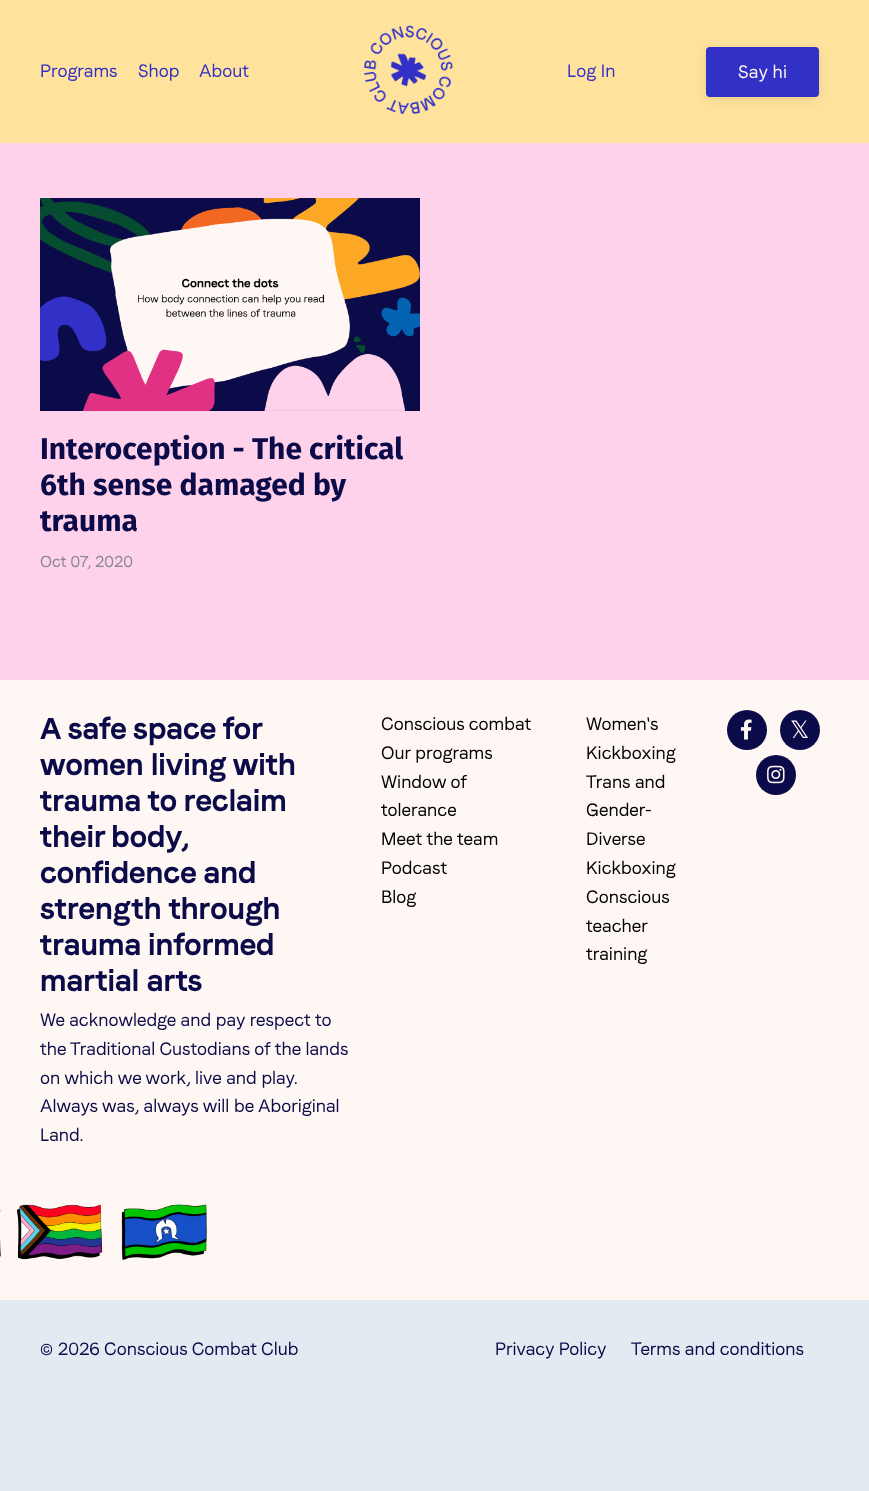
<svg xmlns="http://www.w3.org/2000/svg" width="869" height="1491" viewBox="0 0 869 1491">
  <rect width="100%" height="100%" fill="rgb(255,247,243)"/>
  <rect x="0" y="0" width="869" height="143" fill="rgb(255,227,156)"/>
  <g font-family="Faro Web" font-size="18" fill="rgb(49,48,199)">
    <text x="40" y="77">Programs</text>
    <text x="138" y="77">Shop</text>
    <text x="199" y="77">About</text>
  </g>
  <image x="363" y="25" width="90" height="90" href="pic1.png"/>
  <text x="567" y="77" font-family="Faro Web" font-size="18" fill="rgb(49,48,199)">Log In</text>
  <rect x="706" y="49" width="113" height="50" rx="4" fill="rgba(0,0,0,0.1)" filter="blur(5px)"/>
  <rect x="707" y="48" width="111" height="48" rx="3" fill="rgb(49,48,199)" stroke="rgb(49,48,199)" stroke-width="2"/>
  <text x="738" y="78" font-family="Faro Web" font-size="18" letter-spacing="0.25" fill="rgb(255,247,243)">Say hi</text>
  <rect x="0" y="143" width="869" height="537" fill="rgb(253,210,234)"/>
  <image x="40" y="198" width="380" height="213" href="pic2.png"/>
  <g font-family="Fira Sans" font-size="30" font-weight="bold" fill="rgb(12,11,73)">
    <text>
      <tspan x="40" y="459">Interoception - The critical</tspan>
      <tspan x="40" y="495">6th sense damaged by</tspan>
      <tspan x="40" y="531">trauma</tspan>
    </text>
  </g>
  <text x="40" y="567" font-family="Faro Web" font-size="16" fill="rgb(136,136,136)">Oct 07, 2020</text>
  <g font-family="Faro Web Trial" font-size="30" font-weight="bold" fill="rgb(12,11,73)">
    <text>
      <tspan x="40" y="739">A safe space for</tspan>
      <tspan x="40" y="775">women living with</tspan>
      <tspan x="40" y="811">trauma to reclaim</tspan>
      <tspan x="40" y="847" word-spacing="-1">their body,</tspan>
      <tspan x="40" y="883">confidence and</tspan>
      <tspan x="40" y="919">strength through</tspan>
      <tspan x="40" y="955">trauma informed</tspan>
      <tspan x="40" y="991">martial arts</tspan>
    </text>
  </g>
  <g font-family="Faro Web" font-size="18" fill="rgb(12,11,73)">
    <text>
      <tspan x="40" y="1026">We acknowledge and pay respect to</tspan>
      <tspan x="40" y="1055">the Traditional Custodians of the lands</tspan>
      <tspan x="40" y="1084">on which we work, live and play.</tspan>
      <tspan x="40" y="1112">Always was, always will be Aboriginal</tspan>
      <tspan x="40" y="1141">Land.</tspan>
    </text>
  </g>
  <g font-family="Faro Web" font-size="18" fill="rgb(0,0,0)">
    <text>
      <tspan x="381" y="730">Conscious combat</tspan>
      <tspan x="381" y="759">Our programs</tspan>
      <tspan x="381" y="788">Window of</tspan>
      <tspan x="381" y="816">tolerance</tspan>
      <tspan x="381" y="845">Meet the team</tspan>
      <tspan x="381" y="874">Podcast</tspan>
      <tspan x="381" y="903">Blog</tspan>
    </text>
    <text>
      <tspan x="586" y="730">Women's</tspan>
      <tspan x="586" y="759">Kickboxing</tspan>
      <tspan x="586" y="788">Trans and</tspan>
      <tspan x="586" y="816">Gender-</tspan>
      <tspan x="586" y="845">Diverse</tspan>
      <tspan x="586" y="874">Kickboxing</tspan>
      <tspan x="586" y="903">Conscious</tspan>
      <tspan x="586" y="932">teacher</tspan>
      <tspan x="586" y="960">training</tspan>
    </text>
  </g>
  <circle cx="747" cy="730" r="20" fill="rgb(12,11,73)"/>
  <image x="740" y="719" width="12" height="21" href="pic3.png"/>
  <circle cx="800" cy="730" r="20" fill="rgb(12,11,73)"/>
  <text x="790" y="738" font-family="DejaVu Sans" font-size="24" fill="rgb(255,247,243)">𝕏</text>
  <circle cx="776" cy="775" r="20" fill="rgb(12,11,73)"/>
  <image x="767" y="765" width="18" height="19" href="pic4.png"/>
  <image x="0" y="1204" width="207" height="56" href="pic5.png"/>
  <rect x="0" y="1300" width="869" height="191" fill="rgb(227,235,242)"/>
  <g font-family="Faro Web" font-size="18" fill="rgb(12,11,73)">
    <text x="40" y="1355">© 2026 Conscious Combat Club</text>
    <text x="495" y="1355">Privacy Policy</text>
    <text x="631" y="1355">Terms and conditions</text>
  </g>
</svg>
